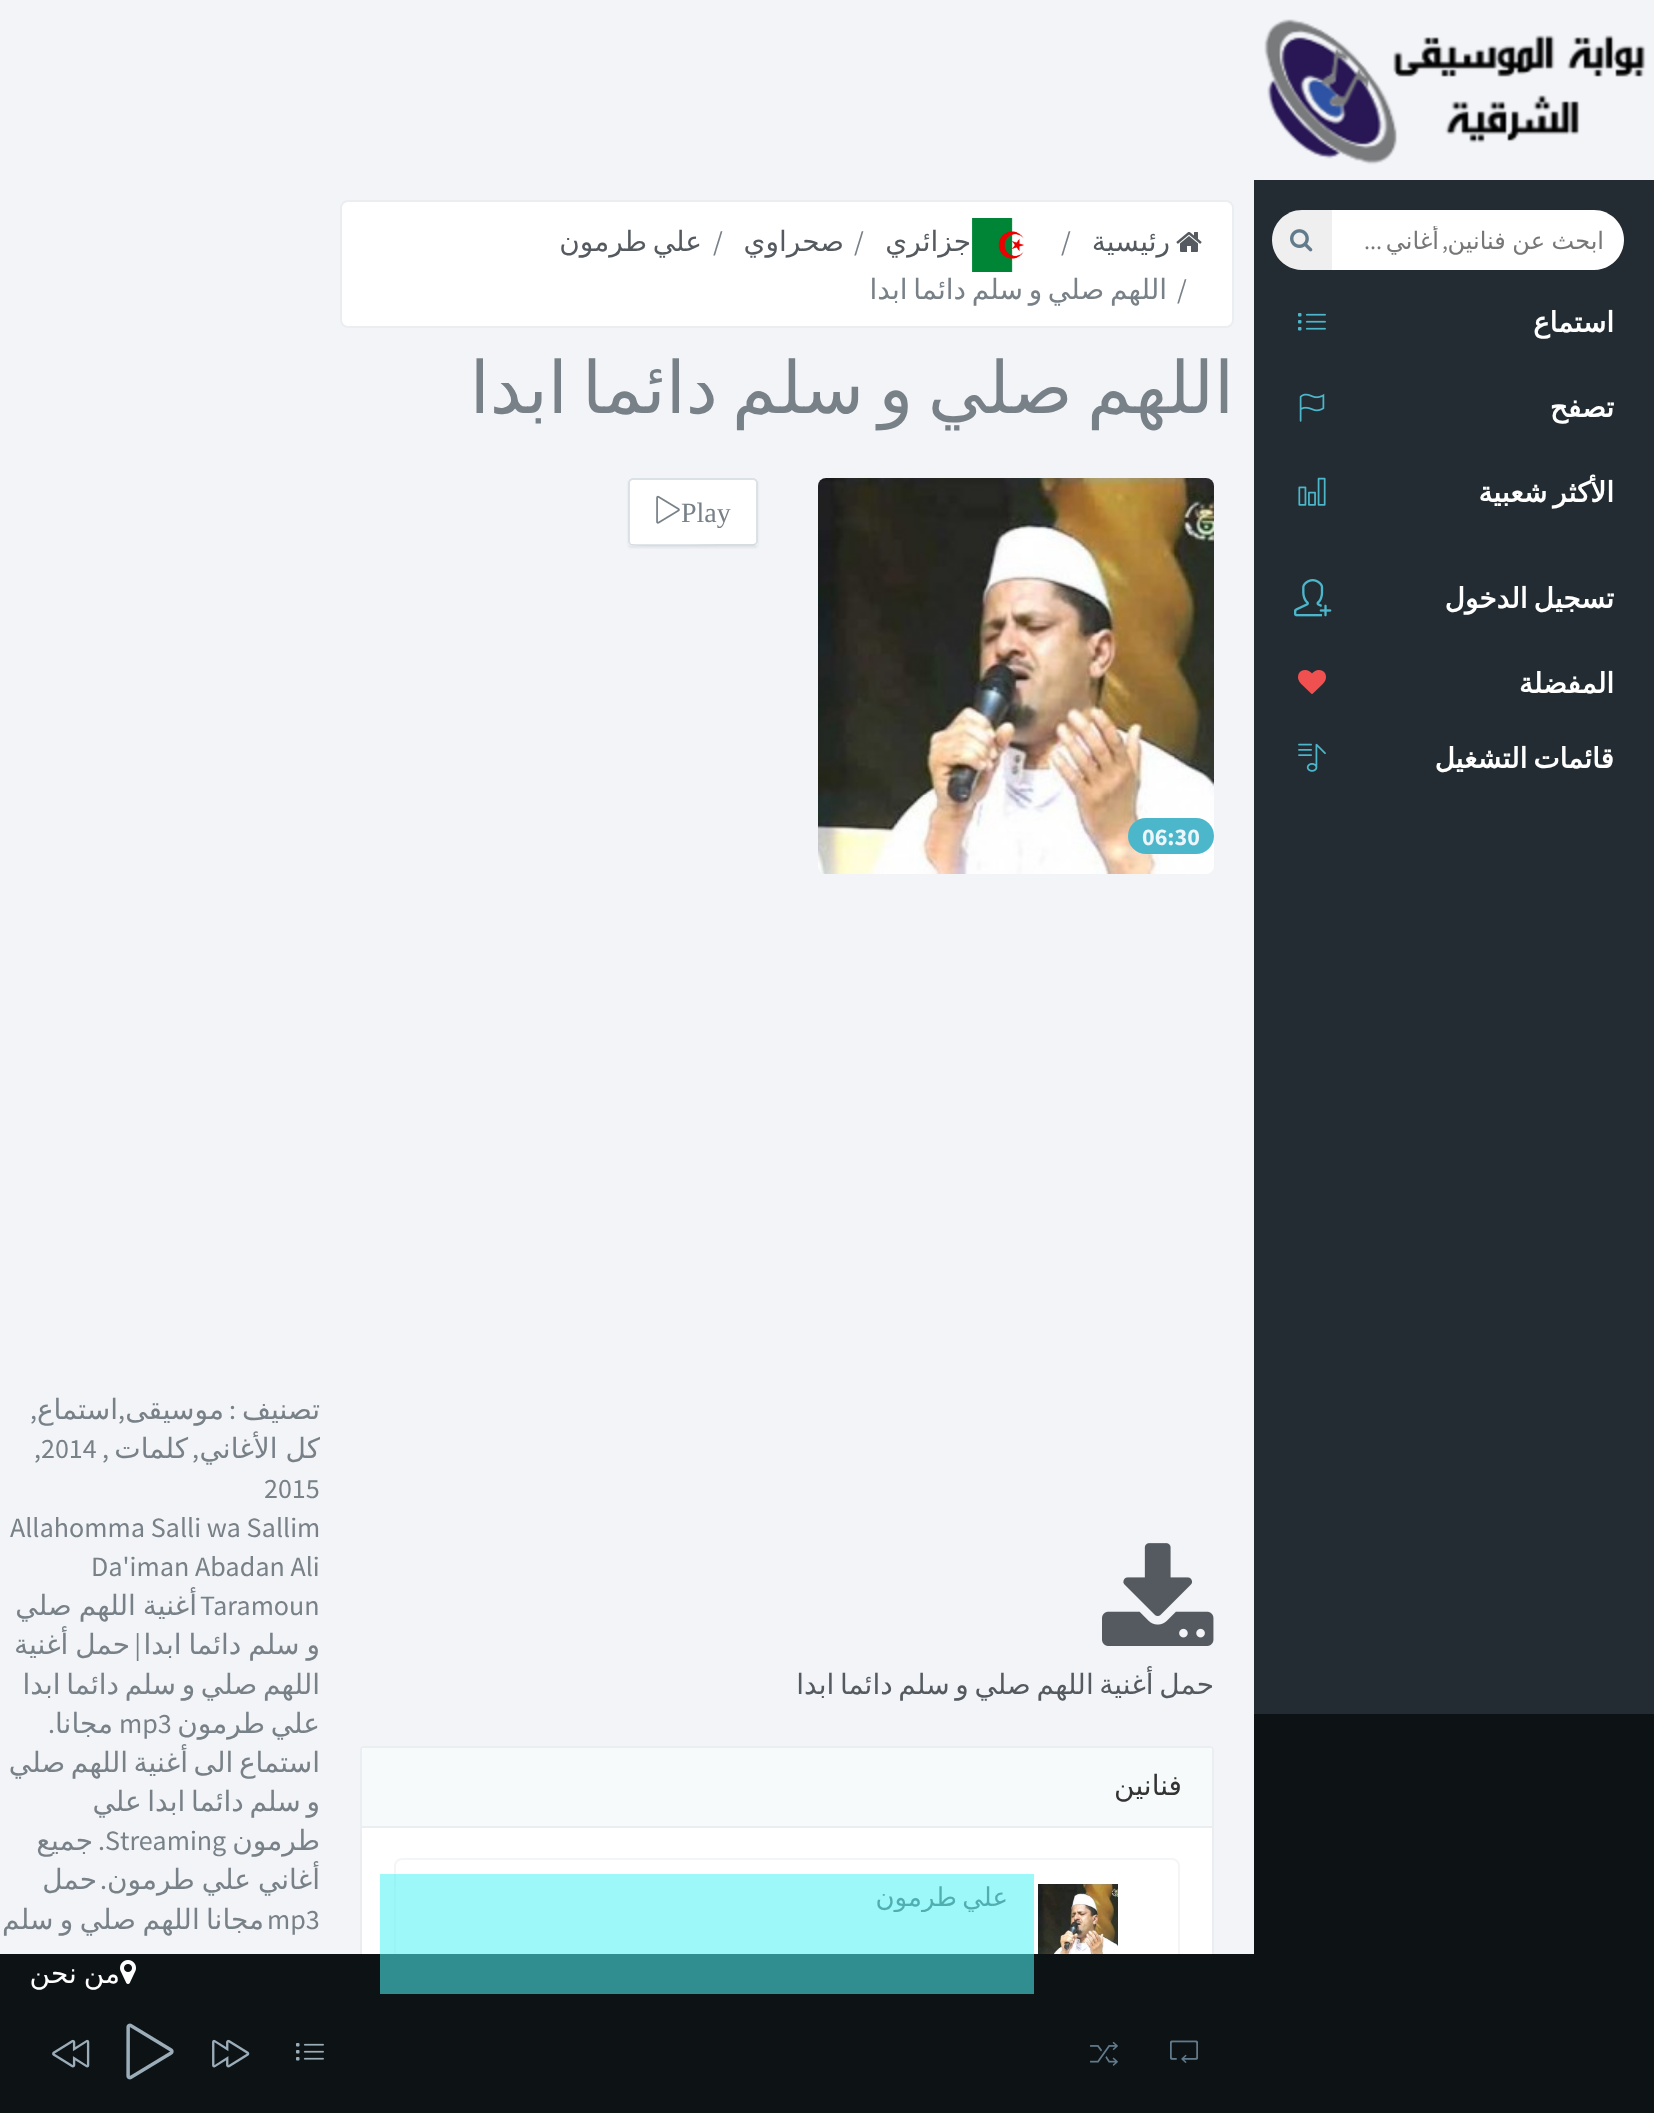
<svg xmlns="http://www.w3.org/2000/svg" width="1654" height="2113" viewBox="0 0 1654 2113">
  <defs>
    <clipPath id="clip1"><rect x="1352" y="226" width="252" height="30"/></clipPath>
    <clipPath id="clip2"><rect x="1360" y="740" width="254" height="40"/></clipPath>
    <clipPath id="clip3"><rect x="320" y="180" width="934" height="1774"/></clipPath>
    <clipPath id="clip4"><rect x="426" y="1884" width="582" height="28"/></clipPath>
    <clipPath id="clip5"><rect x="0" y="180" width="320" height="1774"/></clipPath>
  </defs>
  <rect width="100%" height="100%" fill="rgb(242,244,248)"/>
  <image x="1264" y="19" width="382" height="146" href="pic1.png"/>
  <rect x="1254" y="180" width="400" height="1534" fill="rgb(35,44,50)"/>
  <path d="M1332 210H1594C1610.5 210 1624 223.5 1624 240C1624 256.5 1610.5 270 1594 270H1332Z" fill="rgb(255,255,255)"/>
  <g clip-path="url(#clip1)">
    <text x="1604" y="249" word-spacing="-1" font-family="DejaVu Sans" font-size="24" direction="rtl" fill="rgb(119,119,119)">ابحث عن فنانين</text>
  </g>
  <text x="1448" y="249" font-family="Source Sans Pro" font-size="24" direction="rtl" fill="rgb(119,119,119)">,</text>
  <g clip-path="url(#clip1)">
    <text x="1439" y="249" font-family="DejaVu Sans" font-size="24" direction="rtl" fill="rgb(119,119,119)">أغاني</text>
  </g>
  <text x="1382" y="249" font-family="Source Sans Pro" font-size="24" direction="rtl" fill="rgb(119,119,119)">...</text>
  <path d="M1302 210H1332V270H1302C1285.5 270 1272 256.5 1272 240C1272 223.5 1285.5 210 1302 210Z" fill="rgb(239,239,239)"/>
  <image x="1290" y="229" width="23" height="23" href="pic2.png"/>
  <text x="1614" y="332" font-family="DejaVu Sans" font-size="28" font-weight="bold" direction="rtl" fill="rgb(255,255,255)">استماع</text>
  <image x="1298" y="313" width="28" height="18" href="pic3.png"/>
  <text x="1614" y="417" font-family="DejaVu Sans" font-size="28" font-weight="bold" direction="rtl" fill="rgb(255,255,255)">تصفح</text>
  <image x="1299" y="393" width="26" height="29" href="pic4.png"/>
  <text x="1614" y="502" word-spacing="-3" font-family="DejaVu Sans" font-size="28" font-weight="bold" direction="rtl" fill="rgb(255,255,255)">الأكثر شعبية</text>
  <image x="1298" y="477" width="28" height="29" href="pic5.png"/>
  <text x="1614" y="608" word-spacing="-3" font-family="DejaVu Sans" font-size="28" font-weight="bold" direction="rtl" fill="rgb(255,255,255)">تسجيل الدخول</text>
  <image x="1294" y="579" width="38" height="38" href="pic6.png"/>
  <text x="1614" y="693" font-family="DejaVu Sans" font-size="28" font-weight="bold" direction="rtl" fill="rgb(255,255,255)">المفضلة</text>
  <image x="1298" y="670" width="28" height="24" href="pic7.png"/>
  <g clip-path="url(#clip2)">
    <text x="1614" y="768" word-spacing="-3" font-family="DejaVu Sans" font-size="28" font-weight="bold" direction="rtl" fill="rgb(255,255,255)">قائمات التشغيل</text>
  </g>
  <image x="1298" y="743" width="28" height="29" href="pic8.png"/>
  <rect x="1254" y="1714" width="400" height="399" fill="rgb(13,18,21)"/>
  <rect x="341" y="201" width="892" height="126" rx="7" fill="rgb(255,255,255)" stroke="rgb(234,238,241)" stroke-width="2"/>
  <image x="1176" y="232" width="26" height="20" href="pic9.png"/>
  <text x="1170" y="251" font-family="DejaVu Sans" font-size="28" direction="rtl" fill="rgb(84,90,95)">رئيسية</text>
  <text x="1061" y="251" font-family="Source Sans Pro" font-size="28" fill="rgb(120,129,136)">/</text>
  <image x="972" y="218" width="52" height="54" href="pic10.png"/>
  <text x="971" y="251" font-family="DejaVu Sans" font-size="28" direction="rtl" fill="rgb(84,90,95)">جزائري</text>
  <text x="854" y="251" font-family="Source Sans Pro" font-size="28" fill="rgb(120,129,136)">/</text>
  <text x="844" y="251" font-family="DejaVu Sans" font-size="28" direction="rtl" fill="rgb(84,90,95)">صحراوي</text>
  <text x="713" y="251" font-family="Source Sans Pro" font-size="28" fill="rgb(120,129,136)">/</text>
  <text x="702" y="251" word-spacing="-3.25" font-family="DejaVu Sans" font-size="28" direction="rtl" fill="rgb(84,90,95)">علي طرمون</text>
  <text x="1177" y="299" font-family="Source Sans Pro" font-size="28" fill="rgb(120,129,136)">/</text>
  <text x="1167" y="299" word-spacing="-3.25" font-family="DejaVu Sans" font-size="28" direction="rtl" fill="rgb(120,129,136)">اللهم صلي و سلم دائما ابدا</text>
  <g clip-path="url(#clip3)">
    <text x="1234" y="413" word-spacing="-8.5" font-family="DejaVu Sans" font-size="72" direction="rtl" fill="rgb(120,129,136)">اللهم صلي و سلم دائما ابدا</text>
  </g>
  <rect x="628" y="480" width="130" height="68" rx="4" fill="rgba(90,90,90,0.1)" filter="blur(1px)"/>
  <rect x="628" y="478" width="130" height="68" rx="4" fill="rgb(255,255,255)"/>
  <path d="M756 544L754 545H733.5C723 545 632.5 546 630.5 544.5L630 544" fill="none" stroke="rgb(213,221,227)" stroke-width="2"/>
  <path d="M630 544L629 542V482L630 480L632 479H754L756 480L757 482V542L756 544" fill="none" stroke="rgb(219,226,231)" stroke-width="2"/>
  <text x="681" y="522" font-family="Liberation Serif" font-size="28" fill="rgb(120,129,136)">Play</text>
  <image x="656" y="495" width="24" height="29" href="pic11.png"/>
  <image x="818" y="478" width="396" height="396" href="pic12.png"/>
  <rect x="1128" y="818" width="86" height="36" rx="18" fill="rgb(76,182,203)"/>
  <text x="1142" y="845" font-family="Source Sans Pro" font-size="24" font-weight="bold" fill="rgb(234,246,249)">06:30</text>
  <image x="1102" y="1543" width="112" height="103" href="pic13.png"/>
  <text x="1214" y="1694" word-spacing="-3.25" font-family="DejaVu Sans" font-size="28" direction="rtl" fill="rgb(84,90,95)">حمل أغنية اللهم صلي و سلم دائما ابدا</text>
  <path d="M364 1746H1210C1212 1746 1214 1748 1214 1750V1954H360V1750C360 1748 362 1746 364 1746Z" fill="rgb(255,255,255)"/>
  <rect x="361" y="1747" width="852" height="290" rx="3" fill="none" stroke="rgb(234,238,241)" stroke-width="2"/>
  <path d="M366 1748H1208C1210 1748 1212 1750 1212 1752V1828H362V1752C362 1750 364 1748 366 1748Z" fill="rgb(247,250,250)"/>
  <rect x="362" y="1826" width="850" height="2" fill="rgb(234,238,241)"/>
  <text x="1182" y="1795" font-family="DejaVu Sans" font-size="28" direction="rtl" fill="rgb(51,51,51)">فنانين</text>
  <rect x="395" y="1859" width="784" height="126" rx="7" fill="none" stroke="rgb(243,245,247)" stroke-width="2"/>
  <image x="1038" y="1884" width="80" height="70" href="pic14.png"/>
  <g clip-path="url(#clip4)">
    <text x="1008" y="1906" word-spacing="-3" font-family="DejaVu Sans" font-size="26" direction="rtl" fill="rgb(84,90,95)">علي طرمون</text>
  </g>
  <text x="320" y="1419" font-family="DejaVu Sans" font-size="28" direction="rtl" fill="rgb(120,129,136)">تصنيف</text>
  <text x="236" y="1419" font-family="Source Sans Pro" font-size="28" direction="rtl" fill="rgb(120,129,136)">:</text>
  <text x="224" y="1419" font-family="DejaVu Sans" font-size="28" direction="rtl" fill="rgb(120,129,136)">موسيقى</text>
  <text x="125" y="1419" font-family="Source Sans Pro" font-size="28" direction="rtl" fill="rgb(120,129,136)">,</text>
  <text x="118" y="1419" font-family="DejaVu Sans" font-size="28" direction="rtl" fill="rgb(120,129,136)">استماع</text>
  <text x="37" y="1419" font-family="Source Sans Pro" font-size="28" direction="rtl" fill="rgb(120,129,136)">,</text>
  <g clip-path="url(#clip5)">
    <text x="320" y="1458" word-spacing="-1" font-family="DejaVu Sans" font-size="28" direction="rtl" fill="rgb(120,129,136)">كل الأغاني</text>
  </g>
  <text x="199" y="1458" font-family="Source Sans Pro" font-size="28" direction="rtl" fill="rgb(120,129,136)">,</text>
  <text x="188" y="1458" font-family="DejaVu Sans" font-size="28" direction="rtl" fill="rgb(120,129,136)">كلمات</text>
  <text x="109" y="1458" font-family="Source Sans Pro" font-size="28" direction="rtl" fill="rgb(120,129,136)">,</text>
  <g font-family="Source Sans Pro" font-size="28" fill="rgb(120,129,136)">
    <text x="34" y="1458">,2014</text>
    <text x="264" y="1498">2015</text>
    <text x="10" y="1537">Allahomma Salli wa Sallim</text>
    <text x="91" y="1576">Da'iman Abadan Ali</text>
    <text x="200" y="1615">Taramoun</text>
  </g>
  <text x="197" y="1615" word-spacing="-2" font-family="DejaVu Sans" font-size="28" direction="rtl" fill="rgb(120,129,136)">أغنية اللهم صلي</text>
  <g clip-path="url(#clip5)">
    <text x="320" y="1654" word-spacing="-2" font-family="DejaVu Sans" font-size="28" direction="rtl" fill="rgb(120,129,136)">و سلم دائما ابدا</text>
  </g>
  <text x="141" y="1654" font-family="Source Sans Pro" font-size="28" direction="rtl" fill="rgb(120,129,136)">|</text>
  <text x="130" y="1654" word-spacing="-2" font-family="DejaVu Sans" font-size="28" direction="rtl" fill="rgb(120,129,136)">حمل أغنية</text>
  <g clip-path="url(#clip5)">
    <g font-family="DejaVu Sans" font-size="28" direction="rtl" fill="rgb(120,129,136)">
      <text>
        <tspan x="320" y="1694" word-spacing="-3.25">اللهم صلي و سلم دائما ابدا</tspan>
        <tspan x="320" y="1733" word-spacing="-3.25">علي طرمون</tspan>
      </text>
    </g>
  </g>
  <text x="119" y="1733" font-family="Source Sans Pro" font-size="28" fill="rgb(120,129,136)">mp3</text>
  <text x="113" y="1733" font-family="DejaVu Sans" font-size="28" direction="rtl" fill="rgb(120,129,136)">مجانا</text>
  <text x="55" y="1733" font-family="Source Sans Pro" font-size="28" direction="rtl" fill="rgb(120,129,136)">.</text>
  <g clip-path="url(#clip5)">
    <g font-family="DejaVu Sans" font-size="28" direction="rtl" fill="rgb(120,129,136)">
      <text>
        <tspan x="320" y="1772" word-spacing="-3.25">استماع الى أغنية اللهم صلي</tspan>
        <tspan x="320" y="1811" word-spacing="-3.25">و سلم دائما ابدا علي</tspan>
      </text>
    </g>
  </g>
  <text x="320" y="1850" font-family="DejaVu Sans" font-size="28" direction="rtl" fill="rgb(120,129,136)">طرمون</text>
  <text x="105" y="1850" font-family="Source Sans Pro" font-size="28" fill="rgb(120,129,136)">Streaming</text>
  <text x="105" y="1850" font-family="Source Sans Pro" font-size="28" direction="rtl" fill="rgb(120,129,136)">.</text>
  <text x="93" y="1850" font-family="DejaVu Sans" font-size="28" direction="rtl" fill="rgb(120,129,136)">جميع</text>
  <g clip-path="url(#clip5)">
    <text x="320" y="1889" word-spacing="-2" font-family="DejaVu Sans" font-size="28" direction="rtl" fill="rgb(120,129,136)">أغاني علي طرمون</text>
  </g>
  <text x="107" y="1889" font-family="Source Sans Pro" font-size="28" direction="rtl" fill="rgb(120,129,136)">.</text>
  <g font-family="DejaVu Sans" font-size="28" direction="rtl" fill="rgb(120,129,136)">
    <text x="97" y="1889">حمل</text>
    <text x="264" y="1929" word-spacing="-2.5">مجانا اللهم صلي و سلم</text>
  </g>
  <text x="267" y="1929" font-family="Source Sans Pro" font-size="28" fill="rgb(120,129,136)">mp3</text>
  <rect x="0" y="1954" width="1254" height="159" fill="rgb(13,18,21)"/>
  <rect x="380" y="1886" width="654" height="108" fill="rgba(255,255,255,0.1)"/>
  <rect x="380" y="1874" width="654" height="120" fill="rgba(60,242,243,0.5)"/>
  <image x="1170" y="2040" width="28" height="23" href="pic15.png"/>
  <image x="1090" y="2041" width="28" height="25" href="pic16.png"/>
  <image x="296" y="2043" width="28" height="18" href="pic17.png"/>
  <image x="212" y="2039" width="38" height="29" href="pic18.png"/>
  <image x="126" y="2023" width="48" height="57" href="pic19.png"/>
  <image x="52" y="2039" width="38" height="29" href="pic20.png"/>
  <image x="120" y="1960" width="16" height="24" href="pic21.png"/>
  <text x="120" y="1983" word-spacing="-2" font-family="DejaVu Sans" font-size="28" direction="rtl" fill="rgb(255,255,255)">من نحن</text>
</svg>
